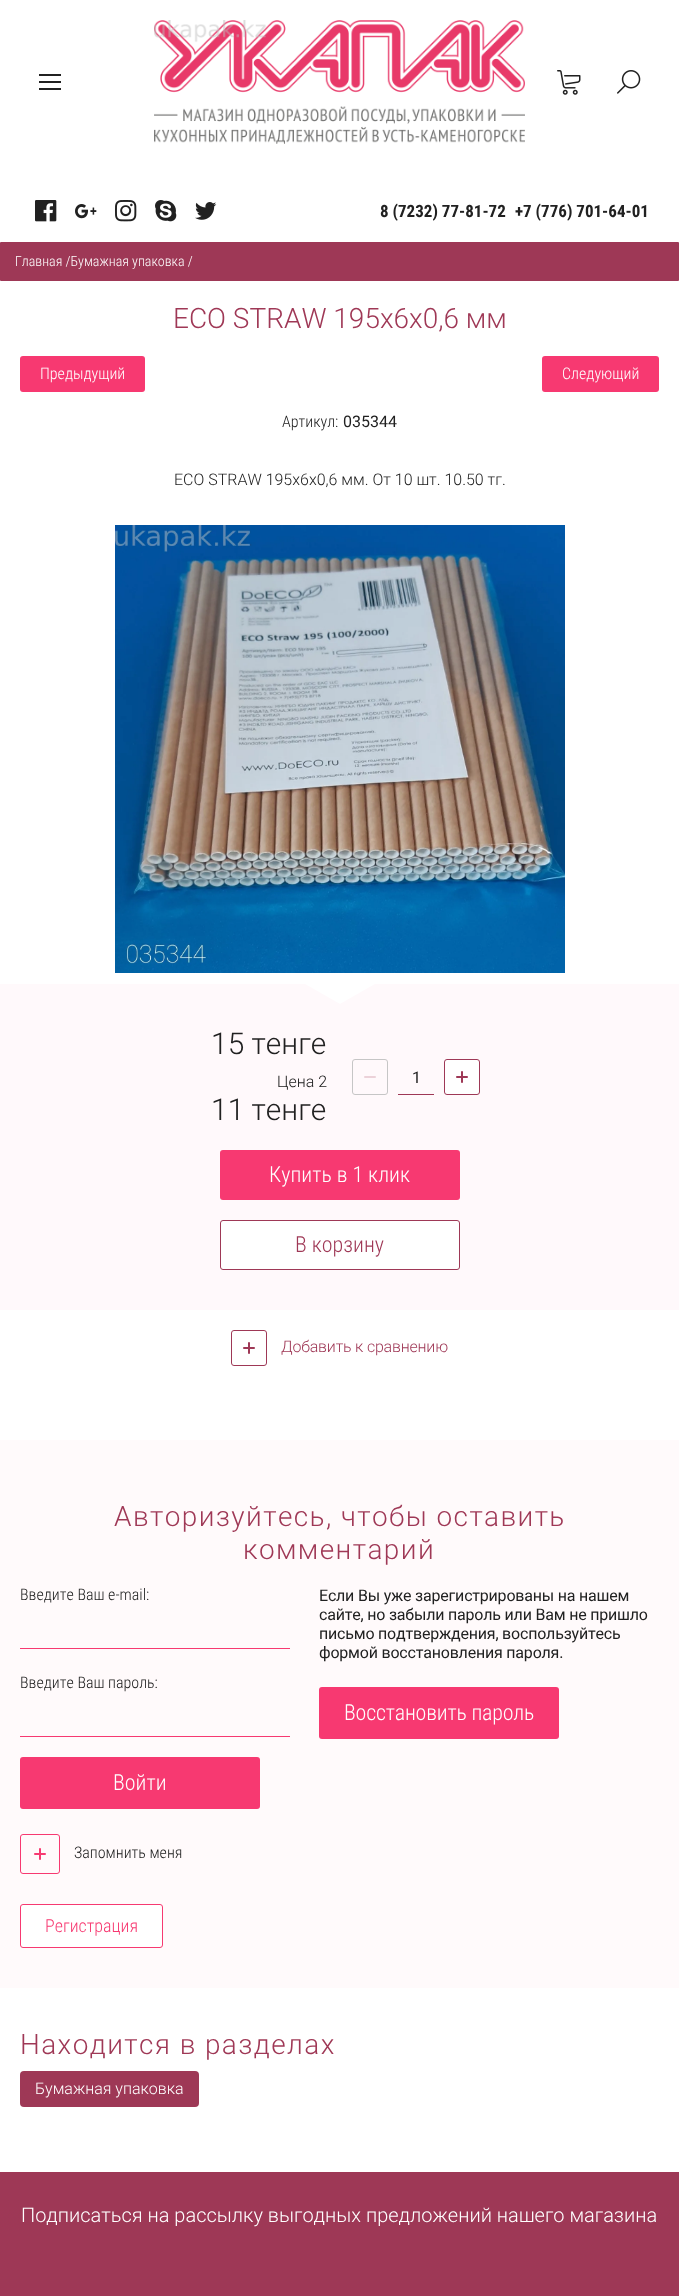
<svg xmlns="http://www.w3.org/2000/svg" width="679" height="2296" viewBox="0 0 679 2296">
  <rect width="100%" height="100%" fill="rgb(255,255,255)"/>
  <rect x="39" y="81" width="22" height="2" fill="rgb(33,33,33)"/>
  <rect x="39" y="74" width="22" height="2" fill="rgb(33,33,33)"/>
  <rect x="39" y="88" width="22" height="2" fill="rgb(33,33,33)"/>
  <image x="154" y="20" width="371" height="124" href="pic1.png"/>
  <image x="557" y="70" width="24" height="25" href="pic2.png"/>
  <image x="617" y="70" width="24" height="24" href="pic3.png"/>
  <image x="35" y="200" width="22" height="22" href="pic4.png"/>
  <image x="75" y="204" width="22" height="15" href="pic5.png"/>
  <image x="115" y="200" width="22" height="22" href="pic6.png"/>
  <image x="155" y="200" width="22" height="22" href="pic7.png"/>
  <image x="195" y="202" width="22" height="18" href="pic8.png"/>
  <g font-family="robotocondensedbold" font-size="17" font-weight="bold" fill="rgb(33,33,33)">
    <text x="380" y="217">8 (7232) 77-81-72</text>
    <text x="515" y="217">+7 (776) 701-64-01</text>
  </g>
  <rect x="0" y="242" width="679" height="39" rx="1" fill="rgb(158,56,86)"/>
  <text x="15" y="266" font-family="Roboto Condensed" font-size="14" font-weight="300" fill="rgb(255,255,255)">Главная /Бумажная упаковка /</text>
  <text x="173" y="328" font-family="Roboto" font-size="28" font-weight="300" fill="rgb(159,56,86)">ECO STRAW 195x6x0,6 мм</text>
  <rect x="20" y="356" width="125" height="36" rx="3" fill="rgb(247,57,113)"/>
  <text x="40" y="379" font-family="Roboto Condensed" font-size="16" font-weight="300" fill="rgb(255,255,255)">Предыдущий</text>
  <rect x="542" y="356" width="117" height="36" rx="3" fill="rgb(247,57,113)"/>
  <text x="562" y="379" font-family="Roboto Condensed" font-size="16" font-weight="300" fill="rgb(255,255,255)">Следующий</text>
  <text x="282" y="427" font-family="Roboto Condensed" font-size="16" font-weight="300" fill="rgb(33,33,33)">Артикул:</text>
  <text x="343" y="427" font-family="roboto" font-size="16" fill="rgb(33,33,33)">035344</text>
  <text x="174" y="485" font-family="Roboto" font-size="16" font-weight="300" fill="rgb(33,33,33)">ECO STRAW 195x6x0,6 мм. От 10 шт. 10.50 тг.</text>
  <image x="115" y="525" width="450" height="448" href="pic9.png"/>
  <rect x="0" y="984" width="679" height="326" fill="rgb(255,249,251)"/>
  <path d="M305 984H375L340 1004Z" fill="rgb(255,255,255)"/>
  <text x="211" y="1054" font-family="Roboto" font-size="30" font-weight="300" fill="rgb(33,33,33)">15 тенге</text>
  <text x="277" y="1087" font-family="Roboto" font-size="16" font-weight="300" fill="rgb(33,33,33)">Цена 2</text>
  <text x="211" y="1120" font-family="Roboto" font-size="30" font-weight="300" fill="rgb(33,33,33)">11 тенге</text>
  <rect x="352.5" y="1059.5" width="35" height="35" rx="2.5" fill="none" stroke="rgb(198,198,198)"/>
  <image x="364" y="1076" width="12" height="2" href="pic10.png"/>
  <rect x="398" y="1094" width="36" height="1" fill="rgb(158,56,86)"/>
  <text x="412" y="1083" font-family="roboto" font-size="16" fill="rgb(33,33,33)">1</text>
  <rect x="444.5" y="1059.5" width="35" height="35" rx="2.5" fill="rgb(255,255,255)" stroke="rgb(158,56,86)"/>
  <image x="456" y="1071" width="12" height="12" href="pic11.png"/>
  <rect x="220" y="1150" width="240" height="50" rx="3" fill="rgb(247,57,113)"/>
  <text x="269" y="1182" font-family="Roboto Condensed" font-size="22" font-weight="300" fill="rgb(255,255,255)">Купить в 1 клик</text>
  <rect x="220.5" y="1220.5" width="239" height="49" rx="2.5" fill="rgb(255,255,255)" stroke="rgb(158,56,86)"/>
  <text x="295" y="1252" font-family="Roboto Condensed" font-size="22" font-weight="300" fill="rgb(159,56,86)">В корзину</text>
  <image x="243" y="1342" width="12" height="12" href="pic11.png"/>
  <rect x="231.5" y="1330.5" width="35" height="35" rx="2.5" fill="none" stroke="rgb(158,56,86)"/>
  <text x="281" y="1352" font-family="Roboto" font-size="16" font-weight="300" letter-spacing="-0.2" fill="rgb(159,56,86)">Добавить к сравнению</text>
  <rect x="0" y="1440" width="679" height="548" fill="rgb(255,250,251)"/>
  <g font-family="Roboto" font-size="28" font-weight="300" letter-spacing="1.4" fill="rgb(159,56,86)">
    <text x="114" y="1526">Авторизуйтесь, чтобы оставить</text>
    <text x="243" y="1559">комментарий</text>
  </g>
  <text x="20" y="1600" font-family="Roboto Condensed" font-size="16" font-weight="300" fill="rgb(33,33,33)">Введите Ваш e-mail:</text>
  <rect x="20" y="1648" width="270" height="1" fill="rgb(247,57,113)"/>
  <text x="20" y="1688" font-family="Roboto Condensed" font-size="16" font-weight="300" fill="rgb(33,33,33)">Введите Ваш пароль:</text>
  <rect x="20" y="1736" width="270" height="1" fill="rgb(247,57,113)"/>
  <rect x="20" y="1757" width="240" height="52" rx="3" fill="rgb(247,57,113)"/>
  <text x="113" y="1790" font-family="Roboto Condensed" font-size="22" font-weight="300" fill="rgb(255,255,255)">Войти</text>
  <rect x="20.5" y="1834.5" width="39" height="39" rx="2.5" fill="none" stroke="rgb(247,57,113)"/>
  <image x="34" y="1848" width="12" height="12" href="pic12.png"/>
  <text x="74" y="1858" font-family="Roboto Condensed" font-size="16" font-weight="300" fill="rgb(33,33,33)">Запомнить меня</text>
  <rect x="20.5" y="1904.5" width="142" height="43" rx="2.5" fill="rgb(255,255,255)" stroke="rgb(247,57,113)"/>
  <text x="45" y="1932" font-family="Roboto Condensed" font-size="18" font-weight="300" fill="rgb(247,57,113)">Регистрация</text>
  <g font-family="roboto" font-size="16" letter-spacing="-0.2" fill="rgb(33,33,33)">
    <text>
      <tspan x="319" y="1601">Если Вы уже зарегистрированы на нашем</tspan>
      <tspan x="319" y="1620">сайте, но забыли пароль или Вам не пришло</tspan>
      <tspan x="319" y="1639">письмо подтверждения, воспользуйтесь</tspan>
      <tspan x="319" y="1658">формой восстановления пароля.</tspan>
    </text>
  </g>
  <rect x="319" y="1687" width="240" height="52" rx="3" fill="rgb(247,57,113)"/>
  <text x="344" y="1720" font-family="Roboto Condensed" font-size="22" font-weight="300" letter-spacing="-0.2" fill="rgb(255,255,255)">Восстановить пароль</text>
  <text x="20" y="2054" font-family="Roboto" font-size="28" font-weight="300" letter-spacing="1.4" fill="rgb(159,56,86)">Находится в разделах</text>
  <rect x="20" y="2071" width="179" height="36" rx="4" fill="rgb(158,56,86)"/>
  <text x="35" y="2094" font-family="Roboto" font-size="16" font-weight="300" fill="rgb(255,255,255)">Бумажная упаковка</text>
  <rect x="0" y="2172" width="679" height="124" fill="rgb(158,56,86)"/>
  <text x="21" y="2222" font-family="Roboto" font-size="20" font-weight="300" fill="rgb(255,255,255)">Подписаться на рассылку выгодных предложений нашего магазина</text>
</svg>
